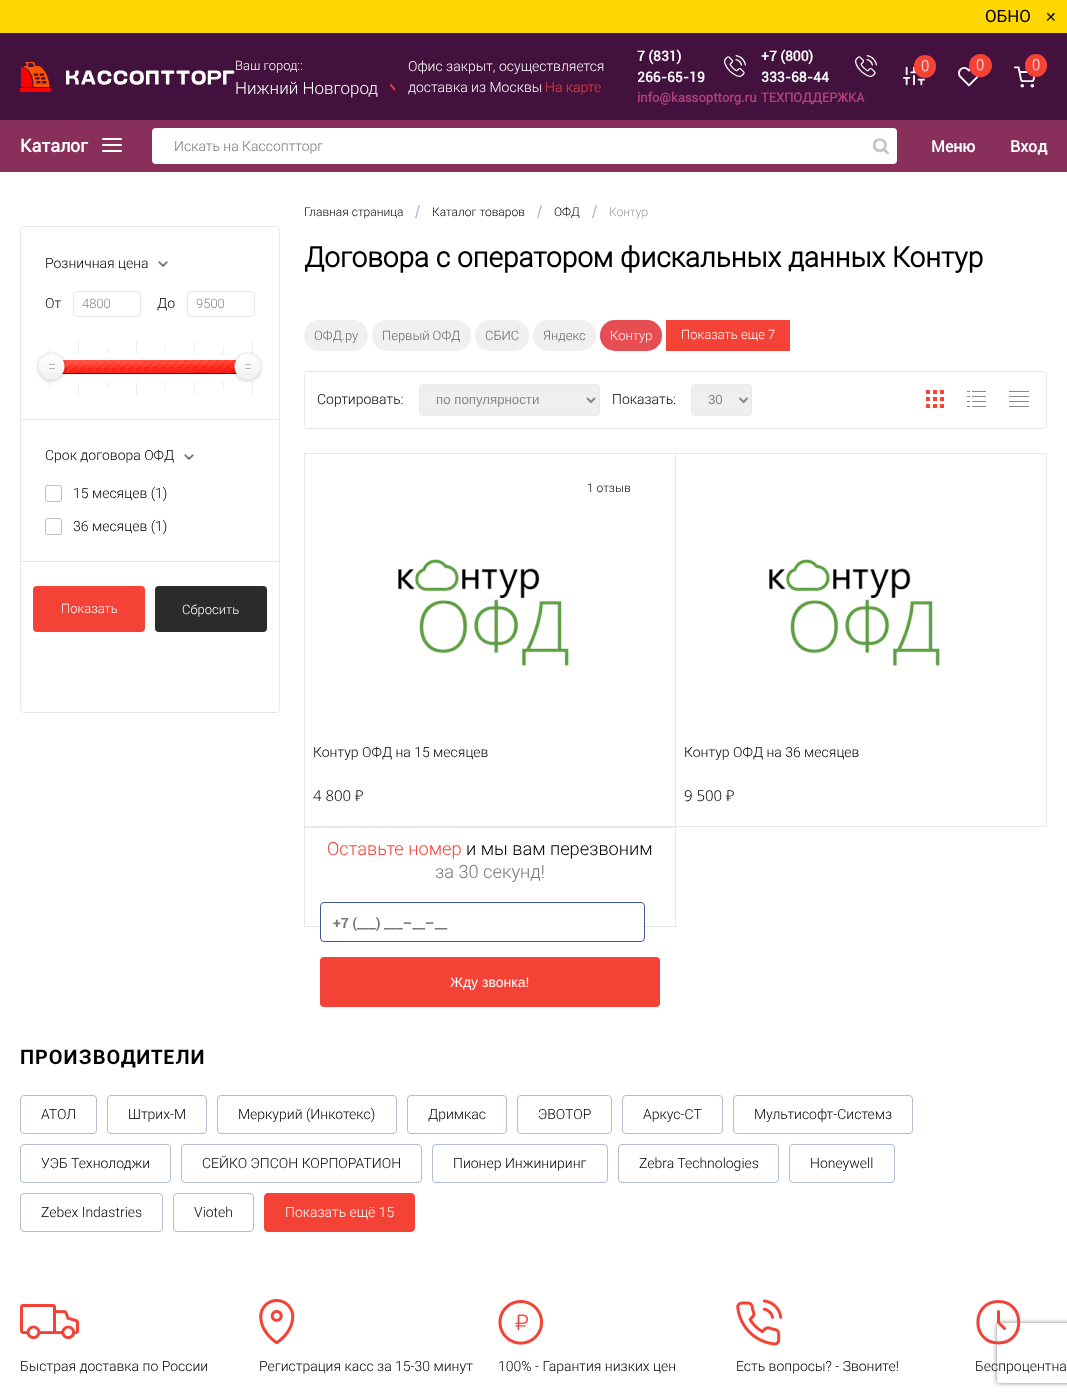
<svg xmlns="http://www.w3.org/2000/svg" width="1067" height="1397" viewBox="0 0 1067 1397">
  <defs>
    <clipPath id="clip1"><path d="M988 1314H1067V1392H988ZM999 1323H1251C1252 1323 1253 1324 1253 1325V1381C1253 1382 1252 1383 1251 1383H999C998 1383 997 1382 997 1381V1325C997 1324 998 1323 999 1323Z" clip-rule="evenodd"/></clipPath>
  </defs>
  <rect width="100%" height="100%" fill="rgb(255,255,255)"/>
  <rect x="0" y="0" width="1067" height="33" fill="rgb(255,215,0)"/>
  <text x="985" y="22" font-family="Roboto" font-size="17" fill="rgb(0,0,0)">ОБНО</text>
  <text x="1045" y="22" font-family="DejaVu Sans" font-size="14" fill="rgb(0,0,0)">✕</text>
  <rect x="0" y="33" width="1067" height="87" fill="rgb(66,17,61)"/>
  <image x="20" y="62" width="215" height="30" href="pic1.png"/>
  <text x="235" y="70" font-family="Roboto" font-size="13" font-weight="300" fill="rgb(255,255,255)">Ваш город::</text>
  <text x="235" y="94" font-family="Roboto" font-size="17" font-weight="300" fill="rgb(255,255,255)">Нижний Новгород</text>
  <image x="390" y="84" width="5" height="8" href="pic2.png"/>
  <g font-family="Roboto" font-size="14" font-weight="300" fill="rgb(255,255,255)">
    <text>
      <tspan x="408" y="71">Офис закрыт, осуществляется</tspan>
      <tspan x="408" y="92">доставка из Москвы</tspan>
    </text>
  </g>
  <text x="545" y="92" font-family="Roboto" font-size="14" font-weight="300" fill="rgb(244,67,54)">На карте</text>
  <g font-family="Roboto" font-size="14" font-weight="bold" fill="rgb(255,255,255)">
    <text>
      <tspan x="637" y="61">7 (831)</tspan>
      <tspan x="637" y="82">266-65-19</tspan>
    </text>
  </g>
  <image x="724" y="55" width="22" height="22" href="pic3.png"/>
  <text x="637" y="102" font-family="Roboto" font-size="13" font-weight="bold" fill="rgb(174,65,120)">info@kassopttorg.ru</text>
  <g font-family="Roboto" font-size="14" font-weight="bold" fill="rgb(255,255,255)">
    <text>
      <tspan x="761" y="61">+7 (800)</tspan>
      <tspan x="761" y="82">333-68-44</tspan>
    </text>
  </g>
  <image x="855" y="55" width="22" height="22" href="pic3.png"/>
  <text x="761" y="102" font-family="Roboto" font-size="13" font-weight="bold" fill="rgb(174,65,120)">ТЕХПОДДЕРЖКА</text>
  <image x="903" y="66" width="22" height="20" href="pic4.png"/>
  <rect x="914" y="55" width="22" height="23" rx="11" fill="rgb(244,67,54)"/>
  <text x="921" y="71" font-family="Roboto" font-size="15" font-weight="300" fill="rgb(255,255,255)">0</text>
  <image x="958" y="67" width="21" height="20" href="pic5.png"/>
  <circle cx="980.5" cy="65.5" r="11.5" fill="rgb(244,67,54)"/>
  <text x="976" y="70" font-family="Roboto" font-size="15" font-weight="300" fill="rgb(255,255,255)">0</text>
  <image x="1014" y="66" width="22" height="22" href="pic6.png"/>
  <rect x="1025" y="54" width="22" height="23" rx="11" fill="rgb(244,67,54)"/>
  <text x="1032" y="70" font-family="Roboto" font-size="15" font-weight="300" fill="rgb(255,255,255)">0</text>
  <rect x="0" y="120" width="1067" height="52" fill="rgb(137,47,92)"/>
  <text x="20" y="152" font-family="Roboto" font-size="18" font-weight="bold" fill="rgb(255,255,255)">Каталог</text>
  <image x="102" y="138" width="20" height="14" href="pic7.png"/>
  <rect x="152" y="128" width="745" height="36" rx="4" fill="rgb(255,255,255)"/>
  <text x="174" y="151" font-family="Roboto" font-size="14" font-weight="300" fill="rgb(119,119,119)">Искать на Кассоптторг</text>
  <image x="873" y="138" width="16" height="16" href="pic8.png"/>
  <g font-family="Roboto" font-size="16" font-weight="bold" fill="rgb(255,255,255)">
    <text x="931" y="152">Меню</text>
    <text x="1010" y="152">Вход</text>
  </g>
  <rect x="20.5" y="226.5" width="259" height="486" rx="3.5" fill="none" stroke="rgb(231,232,234)"/>
  <rect x="21" y="419" width="258" height="1" fill="rgb(231,232,234)"/>
  <text x="45" y="268" font-family="Roboto" font-size="14" font-weight="300" fill="rgb(0,0,0)">Розничная цена</text>
  <image x="158" y="261" width="10" height="6" href="pic9.png"/>
  <text x="45" y="308" font-family="Roboto" font-size="14" font-weight="300" fill="rgb(0,0,0)">От</text>
  <rect x="73.5" y="291.5" width="67" height="25" rx="3.5" fill="none" stroke="rgb(231,232,234)"/>
  <text x="82" y="308" font-family="Roboto" font-size="13" font-weight="300" fill="rgb(136,136,136)">4800</text>
  <text x="157" y="308" font-family="Roboto" font-size="14" font-weight="300" fill="rgb(0,0,0)">До</text>
  <rect x="187.5" y="291.5" width="67" height="25" rx="3.5" fill="none" stroke="rgb(231,232,234)"/>
  <text x="196" y="308" font-family="Roboto" font-size="13" font-weight="300" fill="rgb(136,136,136)">9500</text>
  <image x="49" y="341" width="204" height="54" href="pic10.png"/>
  <image x="62" y="360" width="175" height="14" href="pic11.png"/>
  <image x="36" y="352" width="31" height="31" href="pic12.png"/>
  <image x="232" y="352" width="31" height="31" href="pic13.png"/>
  <rect x="21" y="561" width="258" height="1" fill="rgb(231,232,234)"/>
  <text x="45" y="460" font-family="Roboto" font-size="14" font-weight="300" fill="rgb(0,0,0)">Срок договора ОФД</text>
  <image x="184" y="454" width="10" height="6" href="pic9.png"/>
  <image x="45" y="485" width="17" height="17" href="pic14.png"/>
  <text x="73" y="498" font-family="Roboto" font-size="14" font-weight="300" fill="rgb(0,0,0)">15 месяцев (1)</text>
  <image x="45" y="518" width="17" height="17" href="pic14.png"/>
  <text x="73" y="531" font-family="Roboto" font-size="14" font-weight="300" fill="rgb(0,0,0)">36 месяцев (1)</text>
  <rect x="33" y="586" width="112" height="46" rx="4" fill="rgb(244,67,54)"/>
  <text x="61" y="613" font-family="Roboto" font-size="13" font-weight="300" fill="rgb(255,255,255)">Показать</text>
  <rect x="155" y="586" width="112" height="46" rx="4" fill="rgb(43,43,43)"/>
  <text x="182" y="614" font-family="Roboto" font-size="13" font-weight="300" fill="rgb(255,255,255)">Сбросить</text>
  <text x="304" y="216" font-family="Roboto" font-size="12" font-weight="300" fill="rgb(0,0,0)">Главная страница</text>
  <text x="415" y="218" font-family="Liberation Sans" font-size="18" fill="rgb(179,188,213)">/</text>
  <text x="432" y="216" font-family="Roboto" font-size="12" font-weight="300" fill="rgb(0,0,0)">Каталог товаров</text>
  <text x="537" y="218" font-family="Liberation Sans" font-size="18" fill="rgb(179,188,213)">/</text>
  <text x="554" y="216" font-family="Roboto" font-size="12" font-weight="300" fill="rgb(0,0,0)">ОФД</text>
  <text x="592" y="218" font-family="Liberation Sans" font-size="18" fill="rgb(179,188,213)">/</text>
  <text x="609" y="216" font-family="Roboto" font-size="12" font-weight="300" fill="rgb(153,153,153)">Контур</text>
  <text x="304" y="267" font-family="'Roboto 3'" font-size="28" font-weight="bold" fill="rgb(0,0,0)">Договора с оператором фискальных данных Контур</text>
  <rect x="304" y="320" width="64" height="31" rx="15" fill="rgb(240,240,240)"/>
  <text x="314" y="340" font-family="Roboto" font-size="13" font-weight="300" fill="rgb(102,102,102)">ОФД.ру</text>
  <rect x="372" y="320" width="99" height="31" rx="15" fill="rgb(240,240,240)"/>
  <text x="382" y="340" font-family="Roboto" font-size="13" font-weight="300" fill="rgb(102,102,102)">Первый ОФД</text>
  <rect x="475" y="320" width="54" height="31" rx="15" fill="rgb(240,240,240)"/>
  <text x="485" y="340" font-family="Roboto" font-size="13" font-weight="300" fill="rgb(102,102,102)">СБИС</text>
  <rect x="533" y="320" width="63" height="31" rx="15" fill="rgb(240,240,240)"/>
  <text x="543" y="340" font-family="Roboto" font-size="13" font-weight="300" fill="rgb(102,102,102)">Яндекс</text>
  <rect x="600" y="320" width="62" height="31" rx="15" fill="rgb(230,78,83)"/>
  <text x="610" y="340" font-family="Roboto" font-size="13" font-weight="300" fill="rgb(255,255,255)">Контур</text>
  <rect x="666" y="320" width="124" height="31" fill="rgb(244,67,54)"/>
  <text x="681" y="339" font-family="Roboto" font-size="13" font-weight="300" fill="rgb(255,255,255)">Показать еще 7</text>
  <rect x="304.5" y="371.5" width="742" height="57" rx="3.5" fill="none" stroke="rgb(231,232,234)"/>
  <text x="317" y="404" font-family="Roboto" font-size="14" font-weight="300" fill="rgb(0,0,0)">Сортировать:</text>
  <rect x="419.5" y="384.5" width="180" height="31" rx="3.5" fill="rgb(239,239,239)" stroke="rgb(231,232,234)"/>
  <path d="M587 398L591 402L595 398" fill="none" stroke="rgb(136,136,136)" stroke-width="2"/>
  <text x="436" y="404" font-family="Liberation Sans" font-size="13.25" fill="rgb(136,136,136)">по популярности</text>
  <text x="612" y="404" font-family="Roboto" font-size="14" font-weight="300" fill="rgb(0,0,0)">Показать:</text>
  <rect x="691.5" y="384.5" width="60" height="31" rx="3.5" fill="rgb(239,239,239)" stroke="rgb(231,232,234)"/>
  <path d="M739.5 398L743.5 402L747.5 398" fill="none" stroke="rgb(136,136,136)" stroke-width="2"/>
  <text x="708" y="404" font-family="Liberation Sans" font-size="13.25" fill="rgb(136,136,136)">30</text>
  <image x="926" y="390" width="18" height="18" href="pic15.png"/>
  <image x="967" y="391" width="19" height="16" href="pic16.png"/>
  <image x="1009" y="391" width="20" height="16" href="pic17.png"/>
  <rect x="304.5" y="453.5" width="371" height="373" fill="none" stroke="rgb(231,232,234)"/>
  <text x="587" y="492" font-family="Roboto" font-size="12" font-weight="300" fill="rgb(0,0,0)">1 отзыв</text>
  <image x="398" y="559" width="171" height="107" href="pic18.png"/>
  <text x="313" y="757" font-family="Roboto" font-size="14" font-weight="300" fill="rgb(0,0,0)">Контур ОФД на 15 месяцев</text>
  <text x="313" y="801" font-family="Noto Sans" font-size="15" font-weight="300" fill="rgb(0,0,0)">4 800 ₽</text>
  <rect x="676" y="453" width="371" height="1" fill="rgb(231,232,234)"/>
  <rect x="1046" y="453" width="1" height="374" fill="rgb(231,232,234)"/>
  <rect x="676" y="826" width="371" height="1" fill="rgb(231,232,234)"/>
  <image x="769" y="559" width="171" height="107" href="pic18.png"/>
  <text x="684" y="757" font-family="Roboto" font-size="14" font-weight="300" fill="rgb(0,0,0)">Контур ОФД на 36 месяцев</text>
  <text x="684" y="801" font-family="Noto Sans" font-size="15" font-weight="300" fill="rgb(0,0,0)">9 500 ₽</text>
  <rect x="304.5" y="827.5" width="371" height="99" fill="none" stroke="rgb(231,232,234)"/>
  <text x="327" y="855" font-family="Roboto" font-size="18.25" font-weight="300" fill="rgb(244,67,54)">Оставьте номер</text>
  <text x="466" y="855" font-family="Roboto" font-size="18.25" font-weight="300" fill="rgb(0,0,0)">и мы вам перезвоним</text>
  <text x="435" y="878" font-family="Roboto" font-size="18.25" font-weight="300" fill="rgb(119,119,119)">за 30 секунд!</text>
  <rect x="320.5" y="902.5" width="324" height="39" rx="3.5" fill="rgb(255,255,255)" stroke="rgb(66,87,150)"/>
  <text x="333" y="928" font-family="'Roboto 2'" font-size="14" font-weight="bold" fill="rgb(119,119,119)">+7 (___) ___–__–__</text>
  <rect x="320" y="957" width="340" height="50" rx="4" fill="rgb(244,67,54)"/>
  <text x="450" y="987" font-family="Liberation Sans" font-size="14" fill="rgb(255,255,255)">Жду звонка!</text>
  <text x="20" y="1064" font-family="'Roboto 2'" font-size="20" font-weight="bold" letter-spacing="1" fill="rgb(0,0,0)">ПРОИЗВОДИТЕЛИ</text>
  <rect x="20.5" y="1095.5" width="76" height="38" rx="3.5" fill="none" stroke="rgb(179,188,213)"/>
  <text x="41" y="1119" font-family="Roboto" font-size="14" font-weight="300" fill="rgb(0,0,0)">АТОЛ</text>
  <rect x="107.5" y="1095.5" width="99" height="38" rx="3.5" fill="none" stroke="rgb(179,188,213)"/>
  <text x="128" y="1119" font-family="Roboto" font-size="14" font-weight="300" fill="rgb(0,0,0)">Штрих-М</text>
  <rect x="217.5" y="1095.5" width="179" height="38" rx="3.5" fill="none" stroke="rgb(179,188,213)"/>
  <text x="238" y="1119" font-family="Roboto" font-size="14" font-weight="300" fill="rgb(0,0,0)">Меркурий (Инкотекс)</text>
  <rect x="407.5" y="1095.5" width="99" height="38" rx="3.5" fill="none" stroke="rgb(179,188,213)"/>
  <text x="428" y="1119" font-family="Roboto" font-size="14" font-weight="300" fill="rgb(0,0,0)">Дримкас</text>
  <rect x="517.5" y="1095.5" width="94" height="38" rx="3.5" fill="none" stroke="rgb(179,188,213)"/>
  <text x="538" y="1119" font-family="Roboto" font-size="14" font-weight="300" fill="rgb(0,0,0)">ЭВОТОР</text>
  <rect x="622.5" y="1095.5" width="100" height="38" rx="3.5" fill="none" stroke="rgb(179,188,213)"/>
  <text x="643" y="1119" font-family="Roboto" font-size="14" font-weight="300" fill="rgb(0,0,0)">Аркус-СТ</text>
  <rect x="733.5" y="1095.5" width="179" height="38" rx="3.5" fill="none" stroke="rgb(179,188,213)"/>
  <text x="754" y="1119" font-family="Roboto" font-size="14" font-weight="300" fill="rgb(0,0,0)">Мультисофт-Системз</text>
  <rect x="20.5" y="1144.5" width="150" height="38" rx="3.5" fill="none" stroke="rgb(179,188,213)"/>
  <text x="41" y="1168" font-family="Roboto" font-size="14" font-weight="300" fill="rgb(0,0,0)">УЭБ Технолоджи</text>
  <rect x="181.5" y="1144.5" width="240" height="38" rx="3.5" fill="none" stroke="rgb(179,188,213)"/>
  <text x="202" y="1168" font-family="Roboto" font-size="14" font-weight="300" fill="rgb(0,0,0)">СЕЙКО ЭПСОН КОРПОРАТИОН</text>
  <rect x="432.5" y="1144.5" width="175" height="38" rx="3.5" fill="none" stroke="rgb(179,188,213)"/>
  <text x="453" y="1168" font-family="Roboto" font-size="14" font-weight="300" fill="rgb(0,0,0)">Пионер Инжиниринг</text>
  <rect x="618.5" y="1144.5" width="160" height="38" rx="3.5" fill="none" stroke="rgb(179,188,213)"/>
  <text x="639" y="1168" font-family="Roboto" font-size="14" font-weight="300" fill="rgb(0,0,0)">Zebra Technologies</text>
  <rect x="789.5" y="1144.5" width="105" height="38" rx="3.5" fill="none" stroke="rgb(179,188,213)"/>
  <text x="810" y="1168" font-family="Roboto" font-size="14" font-weight="300" fill="rgb(0,0,0)">Honeywell</text>
  <rect x="20.5" y="1193.5" width="142" height="38" rx="3.5" fill="none" stroke="rgb(179,188,213)"/>
  <text x="41" y="1217" font-family="Roboto" font-size="14" font-weight="300" fill="rgb(0,0,0)">Zebex Indastries</text>
  <rect x="173.5" y="1193.5" width="80" height="38" rx="3.5" fill="none" stroke="rgb(179,188,213)"/>
  <text x="194" y="1217" font-family="Roboto" font-size="14" font-weight="300" fill="rgb(0,0,0)">Vioteh</text>
  <rect x="264.5" y="1193.5" width="150" height="38" rx="3.5" fill="rgb(244,67,54)" stroke="rgb(244,67,54)"/>
  <text x="285" y="1217" font-family="Roboto" font-size="14" font-weight="300" fill="rgb(255,255,255)">Показать ещё 15</text>
  <image x="20" y="1304" width="60" height="36" href="pic19.png"/>
  <text x="20" y="1371" font-family="Roboto" font-size="14" font-weight="300" fill="rgb(0,0,0)">Быстрая доставка по России</text>
  <image x="259" y="1299" width="36" height="46" href="pic20.png"/>
  <text x="259" y="1371" font-family="Roboto" font-size="14" font-weight="300" fill="rgb(0,0,0)">Регистрация касс за 15-30 минут</text>
  <image x="498" y="1300" width="46" height="45" href="pic21.png"/>
  <text x="498" y="1371" font-family="Roboto" font-size="14" font-weight="300" fill="rgb(0,0,0)">100% - Гарантия низких цен</text>
  <image x="736" y="1299" width="47" height="47" href="pic22.png"/>
  <text x="736" y="1371" font-family="Roboto" font-size="14" font-weight="300" fill="rgb(0,0,0)">Есть вопросы? - Звоните!</text>
  <g clip-path="url(#clip1)">
    <rect x="997" y="1323" width="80" height="60" rx="2" fill="rgb(128,128,128)" filter="blur(2.5px)"/>
  </g>
  <path d="M998.5 1343C1025.5 1343 1025.5 1301.5 998.5 1301.5C971 1301.5 971 1343 998.5 1343ZM998.5 1311.5V1322.5L1004.5 1328.5" fill="none" stroke="rgb(244,67,54)" stroke-width="3" stroke-linecap="round" stroke-linejoin="round"/>
  <text x="975" y="1371" font-family="Roboto" font-size="14" font-weight="300" fill="rgb(0,0,0)">Беспроцентна</text>
</svg>
